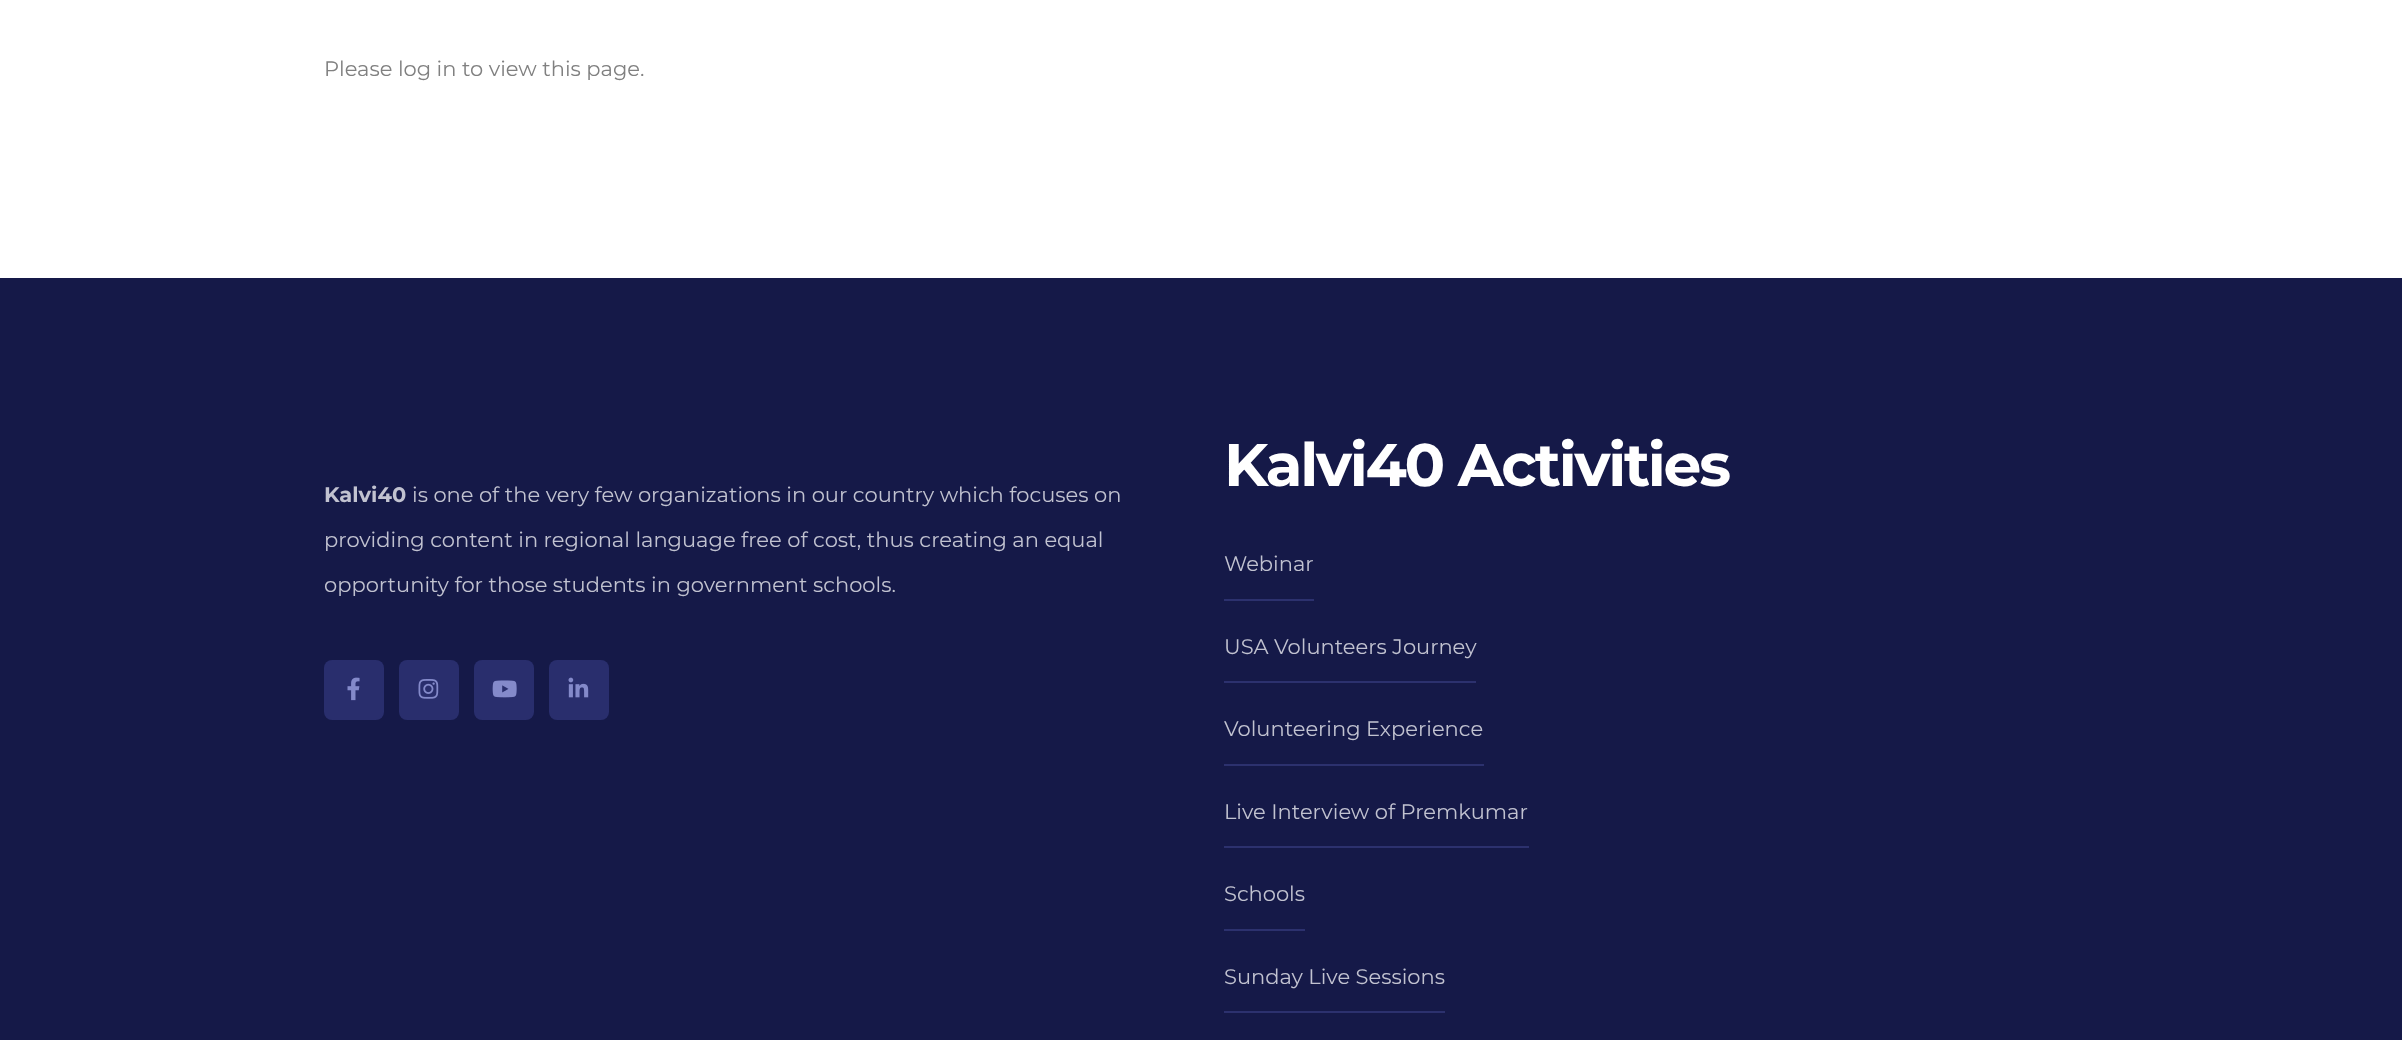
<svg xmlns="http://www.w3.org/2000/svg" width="2402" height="1040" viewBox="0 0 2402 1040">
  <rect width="100%" height="100%" fill="rgb(255,255,255)"/>
  <text x="324" y="76" font-family="Montserrat" font-size="21" fill="rgb(128,128,128)">Please log in to view this page.</text>
  <rect x="0" y="278" width="2402" height="762" fill="rgb(21,25,72)"/>
  <text x="324" y="502" font-family="Montserrat" font-size="21" font-weight="bold" fill="rgb(193,194,208)">Kalvi40</text>
  <g font-family="Montserrat" font-size="21" fill="rgb(193,194,208)">
    <text x="412" y="502">is one of the very few organizations in our country which focuses on</text>
    <text x="324" y="547">providing content in regional language free of cost, thus creating an equal</text>
    <text x="324" y="592">opportunity for those students in government schools.</text>
  </g>
  <rect x="324" y="660" width="60" height="60" rx="8" fill="rgb(41,46,109)"/>
  <image x="347" y="677" width="13" height="24" href="pic1.png"/>
  <rect x="399" y="660" width="60" height="60" rx="8" fill="rgb(41,46,109)"/>
  <image x="418" y="679" width="21" height="20" href="pic2.png"/>
  <rect x="474" y="660" width="60" height="60" rx="8" fill="rgb(41,46,109)"/>
  <image x="492" y="680" width="25" height="18" href="pic3.png"/>
  <rect x="549" y="660" width="60" height="60" rx="8" fill="rgb(41,46,109)"/>
  <image x="568" y="677" width="21" height="21" href="pic4.png"/>
  <text x="1224" y="486" font-family="Montserrat" font-size="60" font-weight="bold" letter-spacing="-2.25" fill="rgb(255,255,255)">Kalvi40 Activities</text>
  <text x="1224" y="571" font-family="Montserrat" font-size="21" fill="rgb(193,194,208)">Webinar</text>
  <rect x="1224" y="599" width="90" height="2" fill="rgb(44,49,110)"/>
  <text x="1224" y="654" font-family="Montserrat" font-size="21" fill="rgb(193,194,208)">USA Volunteers Journey</text>
  <rect x="1224" y="681" width="252" height="2" fill="rgb(44,49,110)"/>
  <text x="1224" y="736" font-family="Montserrat" font-size="21" fill="rgb(193,194,208)">Volunteering Experience</text>
  <rect x="1224" y="764" width="260" height="2" fill="rgb(44,49,110)"/>
  <text x="1224" y="819" font-family="Montserrat" font-size="21" fill="rgb(193,194,208)">Live Interview of Premkumar</text>
  <rect x="1224" y="846" width="305" height="2" fill="rgb(44,49,110)"/>
  <text x="1224" y="901" font-family="Montserrat" font-size="21" fill="rgb(193,194,208)">Schools</text>
  <rect x="1224" y="929" width="81" height="2" fill="rgb(44,49,110)"/>
  <text x="1224" y="984" font-family="Montserrat" font-size="21" fill="rgb(193,194,208)">Sunday Live Sessions</text>
  <rect x="1224" y="1011" width="221" height="2" fill="rgb(44,49,110)"/>
</svg>
